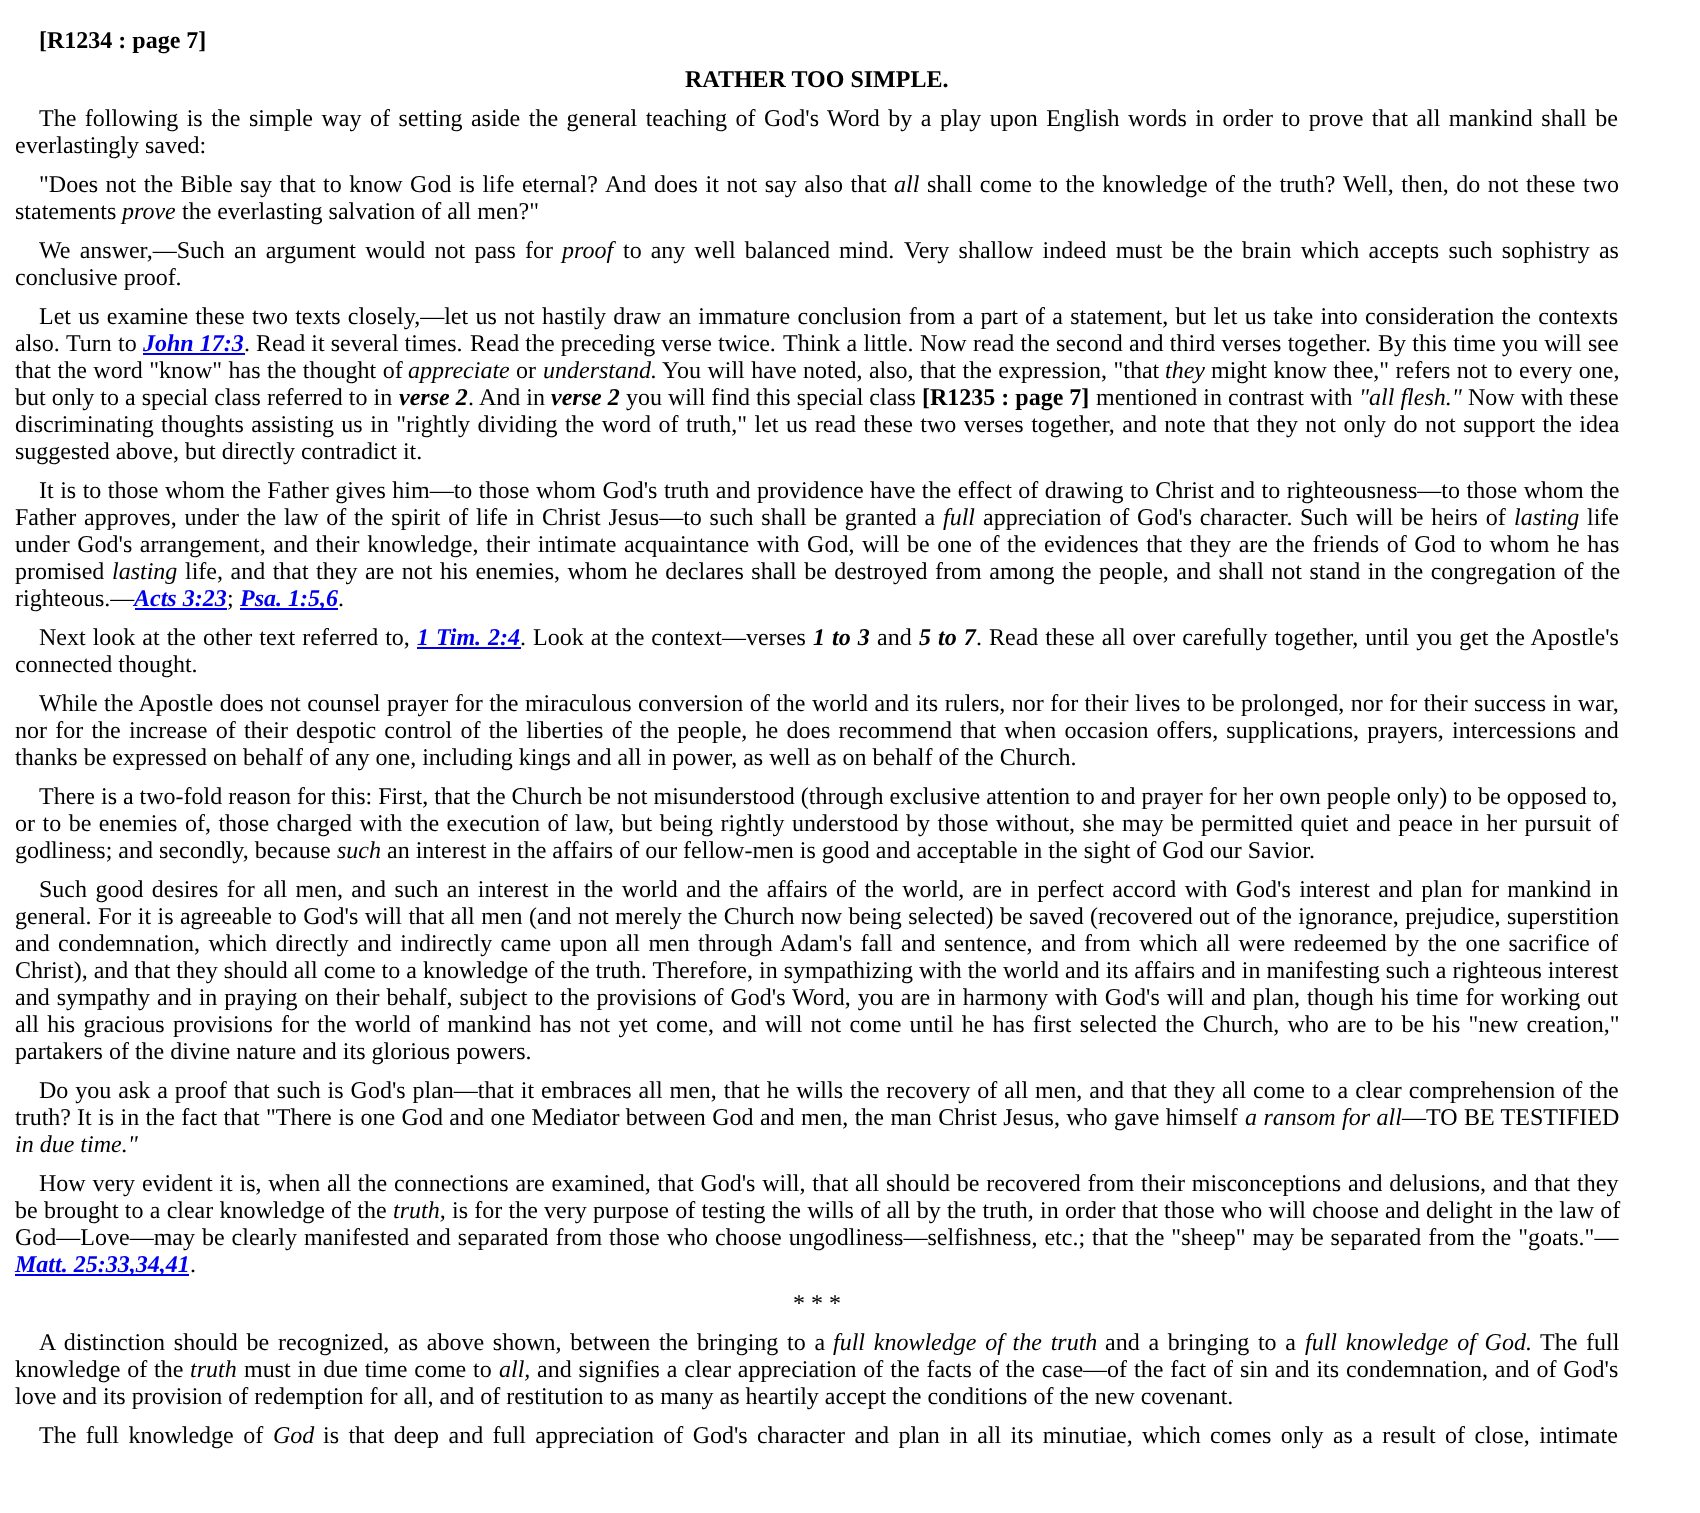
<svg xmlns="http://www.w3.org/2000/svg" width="1700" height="1513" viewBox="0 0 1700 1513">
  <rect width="100%" height="100%" fill="rgb(255,255,255)"/>
  <g font-family="Liberation Serif" font-size="24" font-weight="bold" fill="rgb(0,0,0)">
    <text x="39" y="48">[R1234 : page 7]</text>
    <text x="685" y="87">RATHER TOO SIMPLE.</text>
  </g>
  <g font-family="Liberation Serif" font-size="24" fill="rgb(0,0,0)">
    <text x="39" y="126" word-spacing="2.5">The following is the simple way of setting aside the general teaching of God's Word by a play upon English words in order to prove that all mankind shall be</text>
    <text x="15" y="153">everlastingly saved:</text>
    <text x="39" y="192" word-spacing="1.5">"Does not the Bible say that to know God is life eternal?</text>
    <text x="605" y="192" word-spacing="1.6">And does it not say also that</text>
  </g>
  <text x="894" y="192" font-family="Liberation Serif" font-size="24" font-style="italic" fill="rgb(0,0,0)">all</text>
  <g font-family="Liberation Serif" font-size="24" fill="rgb(0,0,0)">
    <text x="927" y="192" word-spacing="1.5">shall come to the knowledge of the truth?</text>
    <text x="1343" y="192" word-spacing="1.6">Well, then, do not these two</text>
    <text x="15" y="219">statements</text>
  </g>
  <text x="122" y="219" font-family="Liberation Serif" font-size="24" font-style="italic" fill="rgb(0,0,0)">prove</text>
  <g font-family="Liberation Serif" font-size="24" fill="rgb(0,0,0)">
    <text x="182" y="219">the everlasting salvation of all men?"</text>
    <text x="39" y="258" word-spacing="3.25">We answer,—Such an argument would not pass for</text>
  </g>
  <text x="562" y="258" font-family="Liberation Serif" font-size="24" font-style="italic" fill="rgb(0,0,0)">proof</text>
  <g font-family="Liberation Serif" font-size="24" fill="rgb(0,0,0)">
    <text x="623" y="258" word-spacing="3">to any well balanced mind.</text>
    <text x="904" y="258" word-spacing="3.25">Very shallow indeed must be the brain which accepts such sophistry as</text>
    <text x="15" y="285">conclusive proof.</text>
    <text x="39" y="324" word-spacing="1.25">Let us examine these two texts closely,—let us not hastily draw an immature conclusion from a part of a statement, but let us take into consideration the contexts</text>
    <text x="15" y="351">also.</text>
    <text x="66" y="351" word-spacing="0.25">Turn to</text>
  </g>
  <text x="143" y="351" font-family="Liberation Serif" font-size="24" font-weight="bold" font-style="italic" fill="rgb(0,0,238)">John 17:3</text>
  <rect x="143" y="353" width="102" height="2" fill="rgb(0,0,238)"/>
  <g font-family="Liberation Serif" font-size="24" fill="rgb(0,0,0)">
    <text x="244" y="351">.</text>
    <text x="256" y="351">Read it several times.</text>
    <text x="470" y="351">Read the preceding verse twice.</text>
    <text x="783" y="351" word-spacing="0.25">Think a little.</text>
    <text x="920" y="351" word-spacing="0.25">Now read the second and third verses together.</text>
    <text x="1378" y="351" word-spacing="0.25">By this time you will see</text>
    <text x="15" y="378" word-spacing="0.5">that the word "know" has the thought of</text>
  </g>
  <text x="408" y="378" font-family="Liberation Serif" font-size="24" font-style="italic" fill="rgb(0,0,0)">appreciate</text>
  <text x="516" y="378" font-family="Liberation Serif" font-size="24" fill="rgb(0,0,0)">or</text>
  <text x="543" y="378" font-family="Liberation Serif" font-size="24" font-style="italic" fill="rgb(0,0,0)">understand.</text>
  <text x="662" y="378" word-spacing="0.5" font-family="Liberation Serif" font-size="24" fill="rgb(0,0,0)">You will have noted, also, that the expression, "that</text>
  <text x="1165" y="378" font-family="Liberation Serif" font-size="24" font-style="italic" fill="rgb(0,0,0)">they</text>
  <g font-family="Liberation Serif" font-size="24" fill="rgb(0,0,0)">
    <text x="1211" y="378" word-spacing="0.5">might know thee," refers not to every one,</text>
    <text x="15" y="405">but only to a special class referred to in</text>
  </g>
  <text x="399" y="405" font-family="Liberation Serif" font-size="24" font-weight="bold" font-style="italic" fill="rgb(0,0,0)">verse 2</text>
  <g font-family="Liberation Serif" font-size="24" fill="rgb(0,0,0)">
    <text x="468" y="405">.</text>
    <text x="479" y="405">And in</text>
  </g>
  <text x="551" y="405" font-family="Liberation Serif" font-size="24" font-weight="bold" font-style="italic" fill="rgb(0,0,0)">verse 2</text>
  <text x="626" y="405" font-family="Liberation Serif" font-size="24" fill="rgb(0,0,0)">you will find this special class</text>
  <text x="922" y="405" font-family="Liberation Serif" font-size="24" font-weight="bold" fill="rgb(0,0,0)">[R1235 : page 7]</text>
  <text x="1096" y="405" font-family="Liberation Serif" font-size="24" fill="rgb(0,0,0)">mentioned in contrast with</text>
  <text x="1359" y="405" font-family="Liberation Serif" font-size="24" font-style="italic" fill="rgb(0,0,0)">"all flesh."</text>
  <g font-family="Liberation Serif" font-size="24" fill="rgb(0,0,0)">
    <text x="1468" y="405">Now with these</text>
    <text>
      <tspan x="15" y="432" word-spacing="1.45">discriminating thoughts assisting us in "rightly dividing the word of truth," let us read these two verses together, and note that they not only do not support the idea</tspan>
      <tspan x="15" y="459">suggested above, but directly contradict it.</tspan>
    </text>
    <text x="39" y="498" word-spacing="0.5">It is to those whom the Father gives him—to those whom God's truth and providence have the effect of drawing to Christ and to righteousness—to those whom the</text>
    <text x="15" y="525" word-spacing="1.75">Father approves, under the law of the spirit of life in Christ Jesus—to such shall be granted a</text>
  </g>
  <text x="943" y="525" font-family="Liberation Serif" font-size="24" font-style="italic" fill="rgb(0,0,0)">full</text>
  <g font-family="Liberation Serif" font-size="24" fill="rgb(0,0,0)">
    <text x="983" y="525" word-spacing="1.75">appreciation of God's character.</text>
    <text x="1300" y="525" word-spacing="1.75">Such will be heirs of</text>
  </g>
  <text x="1514" y="525" font-family="Liberation Serif" font-size="24" font-style="italic" fill="rgb(0,0,0)">lasting</text>
  <g font-family="Liberation Serif" font-size="24" fill="rgb(0,0,0)">
    <text x="1587" y="525">life</text>
    <text>
      <tspan x="15" y="552" word-spacing="1.6">under God's arrangement, and their knowledge, their intimate acquaintance with God, will be one of the evidences that they are the friends of God to whom he has</tspan>
      <tspan x="15" y="579">promised</tspan>
    </text>
  </g>
  <text x="112" y="579" font-family="Liberation Serif" font-size="24" font-style="italic" fill="rgb(0,0,0)">lasting</text>
  <g font-family="Liberation Serif" font-size="24" fill="rgb(0,0,0)">
    <text x="185" y="579" word-spacing="1.5">life, and that they are not his enemies, whom he declares shall be destroyed from among the people, and shall not stand in the congregation of the</text>
    <text x="15" y="606">righteous.—</text>
  </g>
  <text x="134" y="606" font-family="Liberation Serif" font-size="24" font-weight="bold" font-style="italic" fill="rgb(0,0,238)">Acts 3:23</text>
  <rect x="135" y="608" width="92" height="2" fill="rgb(0,0,238)"/>
  <text x="227" y="606" font-family="Liberation Serif" font-size="24" fill="rgb(0,0,0)">;</text>
  <rect x="240" y="608" width="98" height="2" fill="rgb(0,0,238)"/>
  <text x="240" y="606" font-family="Liberation Serif" font-size="24" font-weight="bold" font-style="italic" fill="rgb(0,0,238)">Psa. 1:5,6</text>
  <g font-family="Liberation Serif" font-size="24" fill="rgb(0,0,0)">
    <text x="338" y="606">.</text>
    <text x="39" y="645" word-spacing="1">Next look at the other text referred to,</text>
  </g>
  <text x="417" y="645" word-spacing="1" font-family="Liberation Serif" font-size="24" font-weight="bold" font-style="italic" fill="rgb(0,0,238)">1 Tim. 2:4</text>
  <rect x="417" y="647" width="104" height="2" fill="rgb(0,0,238)"/>
  <g font-family="Liberation Serif" font-size="24" fill="rgb(0,0,0)">
    <text x="520" y="645">.</text>
    <text x="533" y="645" word-spacing="1">Look at the context—verses</text>
  </g>
  <text x="813" y="645" word-spacing="1" font-family="Liberation Serif" font-size="24" font-weight="bold" font-style="italic" fill="rgb(0,0,0)">1 to 3</text>
  <text x="877" y="645" font-family="Liberation Serif" font-size="24" fill="rgb(0,0,0)">and</text>
  <text x="919" y="645" word-spacing="1" font-family="Liberation Serif" font-size="24" font-weight="bold" font-style="italic" fill="rgb(0,0,0)">5 to 7</text>
  <g font-family="Liberation Serif" font-size="24" fill="rgb(0,0,0)">
    <text x="976" y="645">.</text>
    <text x="989" y="645" word-spacing="1">Read these all over carefully together, until you get the Apostle's</text>
    <text x="15" y="672">connected thought.</text>
    <text x="39" y="711" word-spacing="0.45">While the Apostle does not counsel prayer for the miraculous conversion of the world and its rulers, nor for their lives to be prolonged, nor for their success in war,</text>
    <text>
      <tspan x="15" y="738" word-spacing="2.2">nor for the increase of their despotic control of the liberties of the people, he does recommend that when occasion offers, supplications, prayers, intercessions and</tspan>
      <tspan x="15" y="765">thanks be expressed on behalf of any one, including kings and all in power, as well as on behalf of the Church.</tspan>
    </text>
    <text x="39" y="804">There is a two-fold reason for this: First, that the Church be not misunderstood (through exclusive attention to and prayer for her own people only) to be opposed to,</text>
    <text>
      <tspan x="15" y="831" word-spacing="1.5">or to be enemies of, those charged with the execution of law, but being rightly understood by those without, she may be permitted quiet and peace in her pursuit of</tspan>
      <tspan x="15" y="858">godliness; and secondly, because</tspan>
    </text>
  </g>
  <text x="337" y="858" font-family="Liberation Serif" font-size="24" font-style="italic" fill="rgb(0,0,0)">such</text>
  <g font-family="Liberation Serif" font-size="24" fill="rgb(0,0,0)">
    <text x="387" y="858">an interest in the affairs of our fellow-men is good and acceptable in the sight of God our Savior.</text>
    <text x="39" y="897" word-spacing="2.4">Such good desires for all men, and such an interest in the world and the affairs of the world, are in perfect accord with God's interest and plan for mankind in</text>
    <text x="15" y="924">general.</text>
    <text x="98" y="924" word-spacing="0.4">For it is agreeable to God's will that all men (and not merely the Church now being selected) be saved (recovered out of the ignorance, prejudice, superstition</text>
    <text>
      <tspan x="15" y="951" word-spacing="2.4">and condemnation, which directly and indirectly came upon all men through Adam's fall and sentence, and from which all were redeemed by the one sacrifice of</tspan>
      <tspan x="15" y="978">Christ), and that they should all come to a knowledge of the truth. Therefore, in sympathizing with the world and its affairs and in manifesting such a righteous interest</tspan>
      <tspan x="15" y="1005" word-spacing="1">and sympathy and in praying on their behalf, subject to the provisions of God's Word, you are in harmony with God's will and plan, though his time for working out</tspan>
      <tspan x="15" y="1032" word-spacing="2.2">all his gracious provisions for the world of mankind has not yet come, and will not come until he has first selected the Church, who are to be his "new creation,"</tspan>
      <tspan x="15" y="1059">partakers of the divine nature and its glorious powers.</tspan>
    </text>
    <text x="39" y="1098" word-spacing="0.95">Do you ask a proof that such is God's plan—that it embraces all men, that he wills the recovery of all men, and that they all come to a clear comprehension of the</text>
    <text x="15" y="1125">truth?</text>
    <text x="77" y="1125" word-spacing="0.4">It is in the fact that "There is one God and one Mediator between God and men, the man Christ Jesus, who gave himself</text>
  </g>
  <text x="1245" y="1125" word-spacing="0.5" font-family="Liberation Serif" font-size="24" font-style="italic" fill="rgb(0,0,0)">a ransom for all</text>
  <text x="1402" y="1125" word-spacing="0.4" font-family="Liberation Serif" font-size="24" fill="rgb(0,0,0)">—TO BE TESTIFIED</text>
  <text x="15" y="1152" font-family="Liberation Serif" font-size="24" font-style="italic" fill="rgb(0,0,0)">in due time."</text>
  <g font-family="Liberation Serif" font-size="24" fill="rgb(0,0,0)">
    <text x="39" y="1191" word-spacing="0.8">How very evident it is, when all the connections are examined, that God's will, that all should be recovered from their misconceptions and delusions, and that they</text>
    <text x="15" y="1218" word-spacing="0.25">be brought to a clear knowledge of the</text>
  </g>
  <text x="393" y="1218" font-family="Liberation Serif" font-size="24" font-style="italic" fill="rgb(0,0,0)">truth,</text>
  <g font-family="Liberation Serif" font-size="24" fill="rgb(0,0,0)">
    <text x="452" y="1218" word-spacing="0.25">is for the very purpose of testing the wills of all by the truth, in order that those who will choose and delight in the law of</text>
    <text x="15" y="1245" word-spacing="1">God—Love—may be clearly manifested and separated from those who choose ungodliness—selfishness, etc.; that the "sheep" may be separated from the "goats."—</text>
  </g>
  <rect x="15" y="1274" width="174" height="2" fill="rgb(0,0,238)"/>
  <text x="15" y="1272" font-family="Liberation Serif" font-size="24" font-weight="bold" font-style="italic" fill="rgb(0,0,238)">Matt. 25:33,34,41</text>
  <g font-family="Liberation Serif" font-size="24" fill="rgb(0,0,0)">
    <text x="190" y="1272">.</text>
    <text x="793" y="1311">* * *</text>
    <text x="39" y="1350" word-spacing="2.75">A distinction should be recognized, as above shown, between the bringing to a</text>
  </g>
  <text x="833" y="1350" word-spacing="2.75" font-family="Liberation Serif" font-size="24" font-style="italic" fill="rgb(0,0,0)">full knowledge of the truth</text>
  <text x="1105" y="1350" word-spacing="2.75" font-family="Liberation Serif" font-size="24" fill="rgb(0,0,0)">and a bringing to a</text>
  <text x="1305" y="1350" word-spacing="2.75" font-family="Liberation Serif" font-size="24" font-style="italic" fill="rgb(0,0,0)">full knowledge of God.</text>
  <g font-family="Liberation Serif" font-size="24" fill="rgb(0,0,0)">
    <text x="1540" y="1350" word-spacing="2.75">The full</text>
    <text x="15" y="1377" word-spacing="0.9">knowledge of the</text>
  </g>
  <text x="190" y="1377" font-family="Liberation Serif" font-size="24" font-style="italic" fill="rgb(0,0,0)">truth</text>
  <text x="244" y="1377" word-spacing="0.9" font-family="Liberation Serif" font-size="24" fill="rgb(0,0,0)">must in due time come to</text>
  <text x="499" y="1377" font-family="Liberation Serif" font-size="24" font-style="italic" fill="rgb(0,0,0)">all,</text>
  <g font-family="Liberation Serif" font-size="24" fill="rgb(0,0,0)">
    <text x="537" y="1377" word-spacing="0.9">and signifies a clear appreciation of the facts of the case—of the fact of sin and its condemnation, and of God's</text>
    <text x="15" y="1404">love and its provision of redemption for all, and of restitution to as many as heartily accept the conditions of the new covenant.</text>
    <text x="39" y="1443" word-spacing="3.4">The full knowledge of</text>
  </g>
  <text x="273" y="1443" font-family="Liberation Serif" font-size="24" font-style="italic" fill="rgb(0,0,0)">God</text>
  <text x="323" y="1443" word-spacing="3.4" font-family="Liberation Serif" font-size="24" fill="rgb(0,0,0)">is that deep and full appreciation of God's character and plan in all its minutiae, which comes only as a result of close, intimate</text>
</svg>
